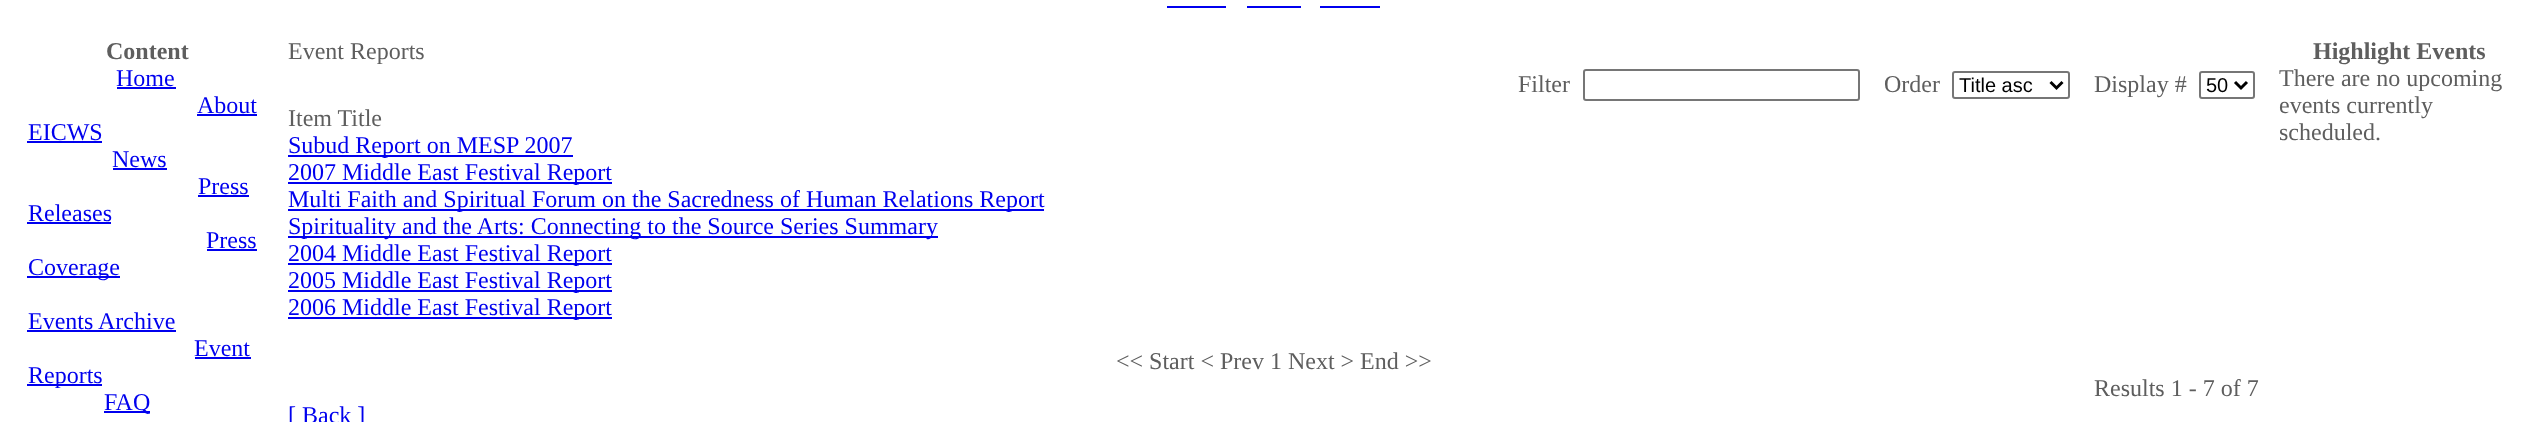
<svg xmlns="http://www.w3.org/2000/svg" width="2547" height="422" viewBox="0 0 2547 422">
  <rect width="100%" height="100%" fill="rgb(255,255,255)"/>
  <rect x="1167" y="6" width="59" height="2" fill="rgb(0,0,238)"/>
  <rect x="1247" y="6" width="54" height="2" fill="rgb(0,0,238)"/>
  <rect x="1320" y="6" width="60" height="2" fill="rgb(0,0,238)"/>
  <text x="106" y="59" font-family="Liberation Serif" font-size="24" font-weight="bold" fill="rgb(94,94,94)">Content</text>
  <text x="116" y="86" font-family="Liberation Serif" font-size="24" fill="rgb(0,0,238)">Home</text>
  <rect x="117" y="87" width="59" height="2" fill="rgb(0,0,238)"/>
  <text x="197" y="113" font-family="Liberation Serif" font-size="24" fill="rgb(0,0,238)">About</text>
  <rect x="197" y="114" width="60" height="2" fill="rgb(0,0,238)"/>
  <text x="28" y="140" font-family="Liberation Serif" font-size="24" fill="rgb(0,0,238)">EICWS</text>
  <rect x="27" y="141" width="75" height="2" fill="rgb(0,0,238)"/>
  <text x="112" y="167" font-family="Liberation Serif" font-size="24" fill="rgb(0,0,238)">News</text>
  <rect x="113" y="168" width="54" height="2" fill="rgb(0,0,238)"/>
  <text x="198" y="194" font-family="Liberation Serif" font-size="24" fill="rgb(0,0,238)">Press</text>
  <rect x="198" y="195" width="51" height="2" fill="rgb(0,0,238)"/>
  <text x="28" y="221" font-family="Liberation Serif" font-size="24" fill="rgb(0,0,238)">Releases</text>
  <rect x="27" y="222" width="84" height="2" fill="rgb(0,0,238)"/>
  <text x="206" y="248" font-family="Liberation Serif" font-size="24" fill="rgb(0,0,238)">Press</text>
  <rect x="207" y="249" width="50" height="2" fill="rgb(0,0,238)"/>
  <rect x="27" y="276" width="93" height="2" fill="rgb(0,0,238)"/>
  <g font-family="Liberation Serif" font-size="24" fill="rgb(0,0,238)">
    <text x="28" y="275">Coverage</text>
    <text x="28" y="329">Events Archive</text>
  </g>
  <rect x="27" y="330" width="149" height="2" fill="rgb(0,0,238)"/>
  <text x="194" y="356" font-family="Liberation Serif" font-size="24" fill="rgb(0,0,238)">Event</text>
  <rect x="195" y="357" width="56" height="2" fill="rgb(0,0,238)"/>
  <rect x="27" y="384" width="75" height="2" fill="rgb(0,0,238)"/>
  <text x="28" y="383" font-family="Liberation Serif" font-size="24" fill="rgb(0,0,238)">Reports</text>
  <rect x="104" y="411" width="46" height="2" fill="rgb(0,0,238)"/>
  <text x="104" y="410" font-family="Liberation Serif" font-size="24" fill="rgb(0,0,238)">FAQ</text>
  <g font-family="Liberation Serif" font-size="24" fill="rgb(94,94,94)">
    <text x="288" y="59">Event Reports</text>
    <text x="1518" y="92">Filter</text>
  </g>
  <rect x="1584" y="70" width="275" height="30" rx="2" fill="none" stroke="rgb(118,118,118)" stroke-width="2"/>
  <text x="1884" y="92" font-family="Liberation Serif" font-size="24" fill="rgb(94,94,94)">Order</text>
  <rect x="1953" y="72" width="116" height="26" rx="2" fill="none" stroke="rgb(118,118,118)" stroke-width="2"/>
  <path d="M2050.5 82L2056.5 88L2062.5 82" fill="none" stroke="rgb(0,0,0)" stroke-width="3"/>
  <text x="1959" y="92" font-family="Liberation Sans" font-size="20" fill="rgb(0,0,0)">Title asc</text>
  <text x="2094" y="92" font-family="Liberation Serif" font-size="24" fill="rgb(94,94,94)">Display #</text>
  <rect x="2200" y="72" width="54" height="26" rx="2" fill="none" stroke="rgb(118,118,118)" stroke-width="2"/>
  <path d="M2235 82L2241 88L2247 82" fill="none" stroke="rgb(0,0,0)" stroke-width="3"/>
  <text x="2206" y="92" font-family="Liberation Sans" font-size="20" fill="rgb(0,0,0)">50</text>
  <text x="288" y="126" font-family="Liberation Serif" font-size="24" fill="rgb(94,94,94)">Item Title</text>
  <rect x="288" y="155" width="285" height="2" fill="rgb(0,0,238)"/>
  <text x="288" y="153" font-family="Liberation Serif" font-size="24" fill="rgb(0,0,238)">Subud Report on MESP 2007</text>
  <rect x="288" y="182" width="324" height="2" fill="rgb(0,0,238)"/>
  <text x="288" y="180" font-family="Liberation Serif" font-size="24" fill="rgb(0,0,238)">2007 Middle East Festival Report</text>
  <rect x="288" y="209" width="756" height="2" fill="rgb(0,0,238)"/>
  <text x="288" y="207" font-family="Liberation Serif" font-size="24" fill="rgb(0,0,238)">Multi Faith and Spiritual Forum on the Sacredness of Human Relations Report</text>
  <rect x="288" y="236" width="650" height="2" fill="rgb(0,0,238)"/>
  <text x="288" y="234" font-family="Liberation Serif" font-size="24" fill="rgb(0,0,238)">Spirituality and the Arts: Connecting to the Source Series Summary</text>
  <rect x="288" y="263" width="324" height="2" fill="rgb(0,0,238)"/>
  <text x="288" y="261" font-family="Liberation Serif" font-size="24" fill="rgb(0,0,238)">2004 Middle East Festival Report</text>
  <rect x="288" y="290" width="324" height="2" fill="rgb(0,0,238)"/>
  <text x="288" y="288" font-family="Liberation Serif" font-size="24" fill="rgb(0,0,238)">2005 Middle East Festival Report</text>
  <rect x="288" y="317" width="324" height="2" fill="rgb(0,0,238)"/>
  <text x="288" y="315" font-family="Liberation Serif" font-size="24" fill="rgb(0,0,238)">2006 Middle East Festival Report</text>
  <g font-family="Liberation Serif" font-size="24" fill="rgb(94,94,94)">
    <text x="1116" y="369">&lt;&lt; Start &lt; Prev 1 Next &gt; End &gt;&gt;</text>
    <text x="2094" y="396">Results 1 - 7 of 7</text>
  </g>
  <text x="288" y="423" font-family="Liberation Serif" font-size="24" fill="rgb(0,0,238)">[ Back ]</text>
  <text x="2313" y="59" font-family="Liberation Serif" font-size="24" font-weight="bold" fill="rgb(94,94,94)">Highlight Events</text>
  <g font-family="Liberation Serif" font-size="24" fill="rgb(94,94,94)">
    <text>
      <tspan x="2279" y="86">There are no upcoming</tspan>
      <tspan x="2279" y="113">events currently</tspan>
      <tspan x="2279" y="140">scheduled.</tspan>
    </text>
  </g>
</svg>
